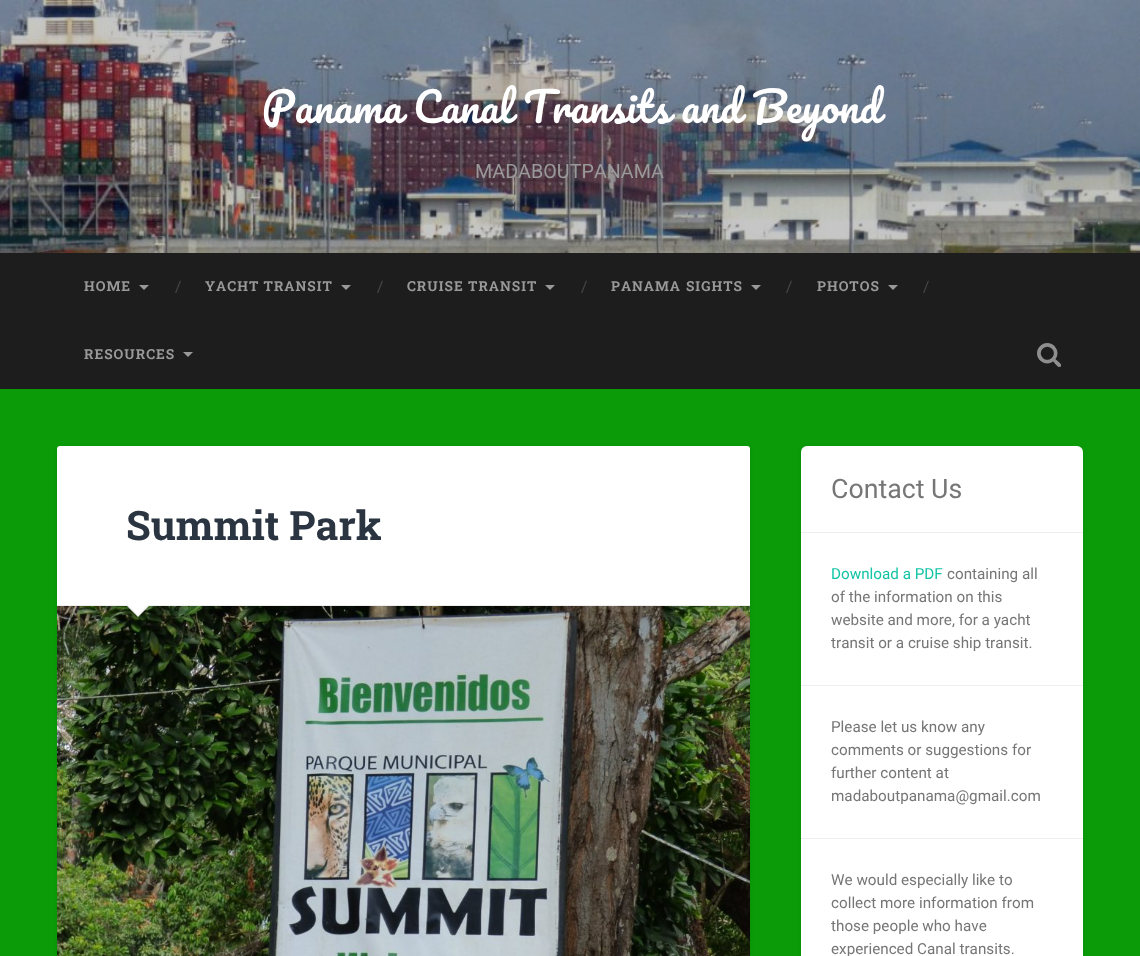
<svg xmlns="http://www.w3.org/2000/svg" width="1140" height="956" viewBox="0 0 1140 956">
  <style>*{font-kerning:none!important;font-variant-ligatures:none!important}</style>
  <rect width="100%" height="100%" fill="rgb(11,155,9)"/>
  <image x="0" y="0" width="1140" height="253" href="pic1.png"/>
  <text x="262" y="123" word-spacing="0.5" font-family="Pacifico" font-size="40.5" fill="rgb(255,255,255)">Panama Canal Transits and Beyond</text>
  <text x="475" y="178" font-family="Roboto" font-size="19.75" fill="rgb(153,153,153)">MADABOUTPANAMA</text>
  <rect x="0" y="253" width="1140" height="136" fill="rgb(29,29,29)"/>
  <text x="84" y="291" font-family="Roboto Slab" font-size="13.75" font-weight="bold" letter-spacing="1" fill="rgb(153,153,153)">HOME</text>
  <path d="M139 285H149L144 290Z" fill="rgb(153,153,153)"/>
  <text x="175" y="292" font-family="Roboto Slab" font-size="16" fill="rgb(68,68,68)">/</text>
  <text x="205" y="291" font-family="Roboto Slab" font-size="13.75" font-weight="bold" letter-spacing="1" fill="rgb(153,153,153)">YACHT TRANSIT</text>
  <path d="M341 285H351L346 290Z" fill="rgb(153,153,153)"/>
  <text x="377" y="292" font-family="Roboto Slab" font-size="16" fill="rgb(68,68,68)">/</text>
  <text x="407" y="291" font-family="Roboto Slab" font-size="13.75" font-weight="bold" letter-spacing="1" fill="rgb(153,153,153)">CRUISE TRANSIT</text>
  <path d="M545 285H555L550 290Z" fill="rgb(153,153,153)"/>
  <text x="581" y="292" font-family="Roboto Slab" font-size="16" fill="rgb(68,68,68)">/</text>
  <text x="611" y="291" font-family="Roboto Slab" font-size="13.75" font-weight="bold" letter-spacing="1" fill="rgb(153,153,153)">PANAMA</text>
  <text x="686" y="291" font-family="Roboto Slab" font-size="13.75" font-weight="bold" letter-spacing="1" fill="rgb(153,153,153)">SIGHTS</text>
  <path d="M751 285H761L756 290Z" fill="rgb(153,153,153)"/>
  <text x="786" y="292" font-family="Roboto Slab" font-size="16" fill="rgb(68,68,68)">/</text>
  <text x="817" y="291" font-family="Roboto Slab" font-size="13.75" font-weight="bold" letter-spacing="1" fill="rgb(153,153,153)">PHOTOS</text>
  <path d="M888 285H898L893 290Z" fill="rgb(153,153,153)"/>
  <text x="923" y="292" font-family="Roboto Slab" font-size="16" fill="rgb(68,68,68)">/</text>
  <text x="84" y="359" font-family="Roboto Slab" font-size="13.75" font-weight="bold" letter-spacing="1" fill="rgb(153,153,153)">RESOURCES</text>
  <path d="M183 352H193L188 357Z" fill="rgb(153,153,153)"/>
  <image x="1037" y="343" width="24" height="24" href="pic2.png"/>
  <rect x="57" y="447" width="693" height="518" rx="3" fill="rgba(0,0,0,0.1)" filter="blur(2px)"/>
  <rect x="57" y="446" width="693" height="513" rx="3" fill="rgb(255,255,255)"/>
  <rect x="57" y="605" width="693" height="1" fill="rgb(238,238,238)"/>
  <text x="126" y="540" font-family="Roboto Slab" font-size="40.5" font-weight="bold" fill="rgb(43,53,66)">Summit Park</text>
  <image x="57" y="606" width="693" height="350" href="pic3.png"/>
  <path d="M126 605H150L138 617Z" fill="rgb(238,238,238)"/>
  <path d="M127 604H149L138 615Z" fill="rgb(255,255,255)"/>
  <rect x="801" y="447" width="282" height="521" rx="6" fill="rgba(0,0,0,0.1)" filter="blur(2px)"/>
  <rect x="801" y="446" width="282" height="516" rx="6" fill="rgb(255,255,255)"/>
  <text x="831" y="498" font-family="Roboto" font-size="26.75" fill="rgb(118,118,118)">Contact Us</text>
  <rect x="801" y="532" width="282" height="1" fill="rgb(238,238,238)"/>
  <text x="831" y="579" font-family="Roboto" font-size="15.25" fill="rgb(19,196,165)">Download a PDF</text>
  <g font-family="Roboto" font-size="15.25" fill="rgb(118,118,118)">
    <text x="947" y="579">containing all</text>
    <text>
      <tspan x="831" y="602">of the information on this</tspan>
      <tspan x="831" y="625">website and more, for a yacht</tspan>
      <tspan x="831" y="648">transit or a cruise ship transit.</tspan>
    </text>
  </g>
  <rect x="801" y="685" width="282" height="1" fill="rgb(238,238,238)"/>
  <g font-family="Roboto" font-size="15.25" fill="rgb(118,118,118)">
    <text>
      <tspan x="831" y="732">Please let us know any</tspan>
      <tspan x="831" y="755">comments or suggestions for</tspan>
      <tspan x="831" y="778">further content at</tspan>
      <tspan x="831" y="801">madaboutpanama@gmail.com</tspan>
    </text>
  </g>
  <rect x="801" y="838" width="282" height="1" fill="rgb(238,238,238)"/>
  <g font-family="Roboto" font-size="15.25" fill="rgb(118,118,118)">
    <text>
      <tspan x="831" y="885">We would especially like to</tspan>
      <tspan x="831" y="908">collect more information from</tspan>
      <tspan x="831" y="931">those people who have</tspan>
      <tspan x="831" y="954">experienced Canal transits.</tspan>
    </text>
  </g>
</svg>
